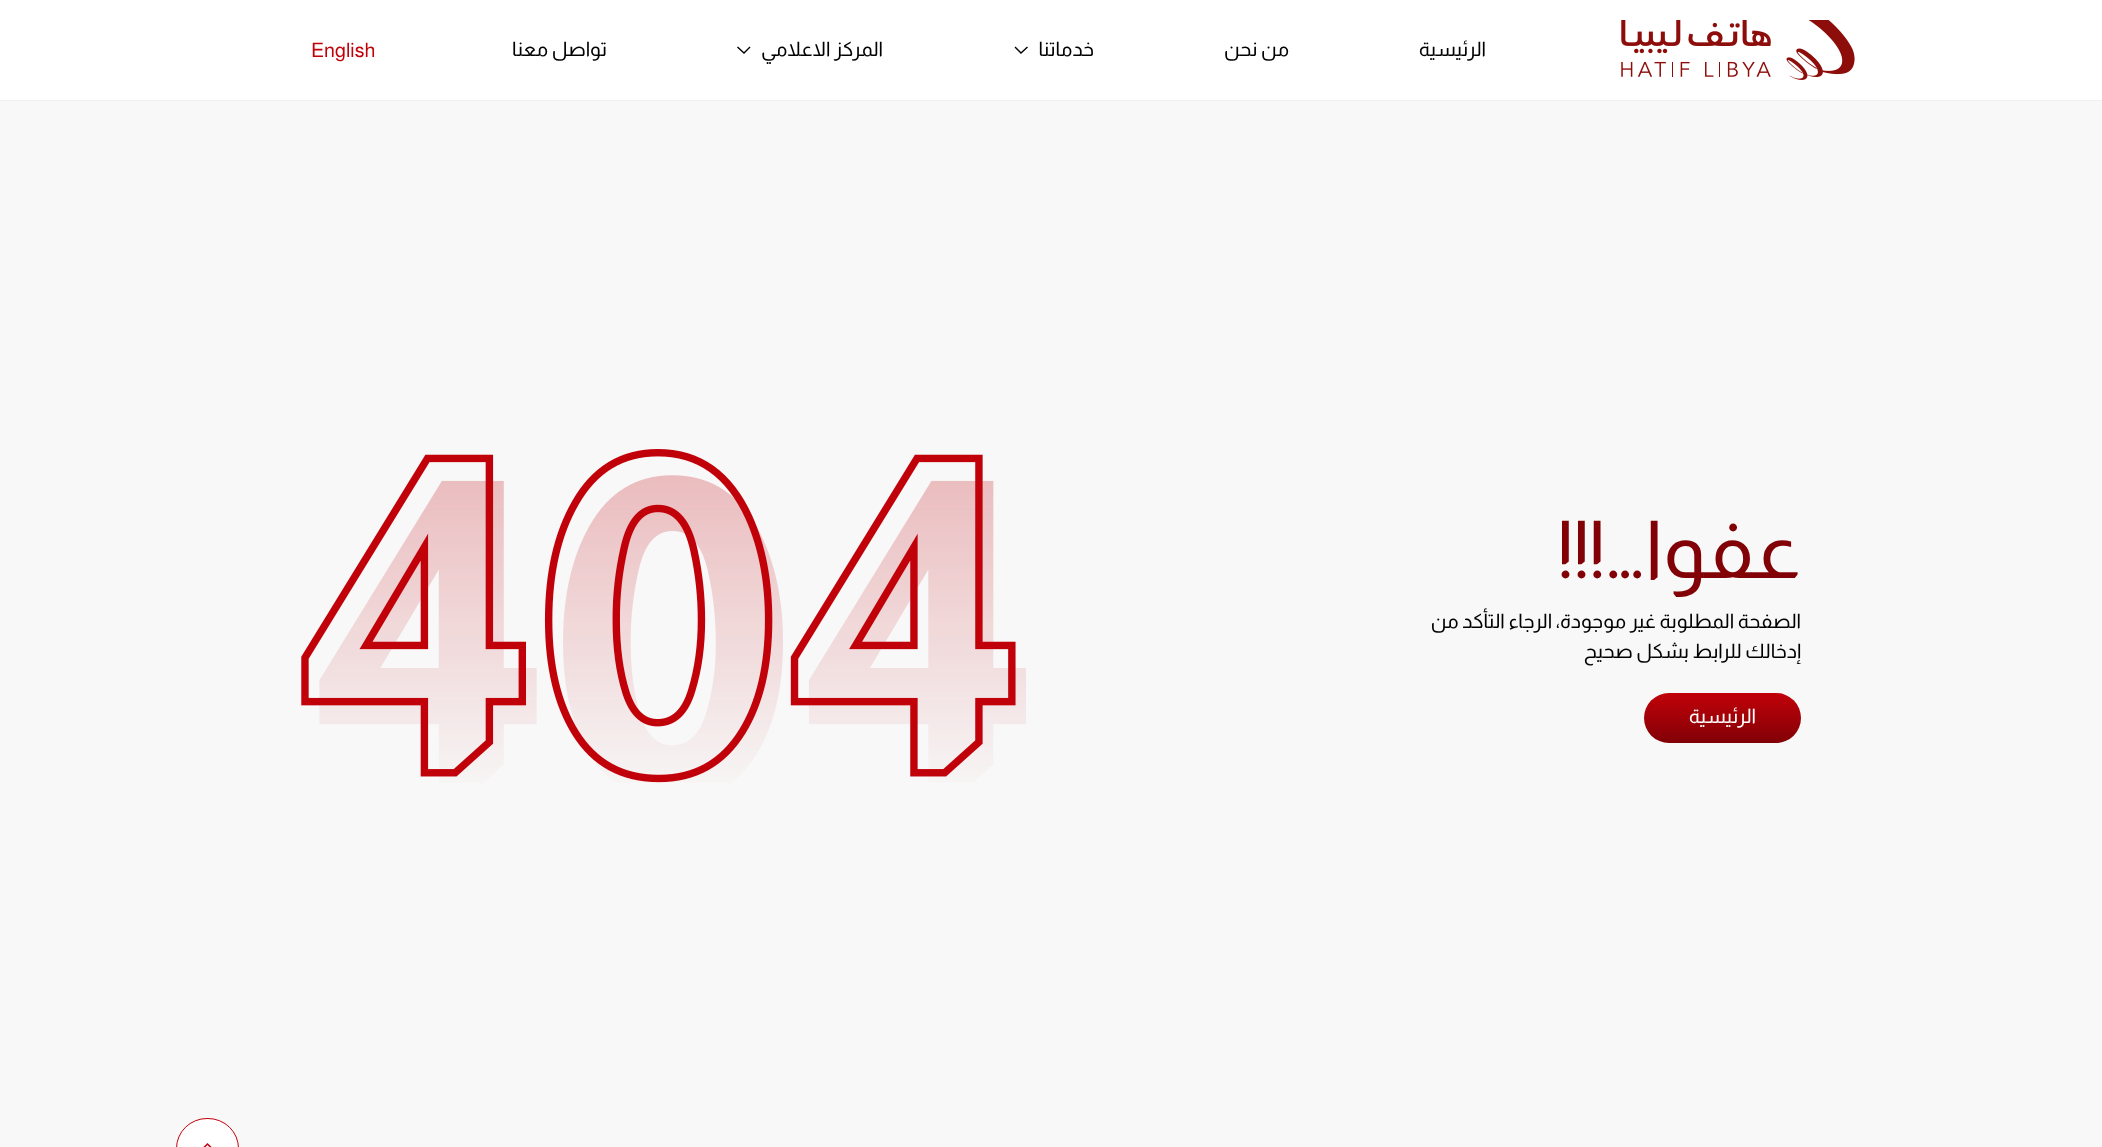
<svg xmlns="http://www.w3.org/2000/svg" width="2102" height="1147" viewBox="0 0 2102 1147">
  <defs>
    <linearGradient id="g1" gradientUnits="userSpaceOnUse" x1="1723" y1="693" x2="1723" y2="743"><stop offset="0" stop-color="rgb(193,1,9)"/><stop offset="1" stop-color="rgb(129,1,6)"/></linearGradient>
  </defs>
  <rect width="100%" height="100%" fill="rgb(255,255,255)"/>
  <rect x="0" y="100" width="2102" height="1" fill="rgb(240,240,240)"/>
  <image x="1621" y="20" width="234" height="60" href="pic1.png"/>
  <g font-family="Almarai" font-size="20" direction="rtl" fill="rgb(0,0,0)">
    <text x="1486" y="56">الرئيسية</text>
    <text x="1289" y="56">من نحن</text>
    <text x="1094" y="56">خدماتنا</text>
  </g>
  <path d="M1015 47L1021 53L1027.5 47" fill="none" stroke="rgb(0,0,0)" stroke-width="1.4"/>
  <text x="883" y="56" font-family="Almarai" font-size="20" direction="rtl" fill="rgb(0,0,0)">المركز الاعلامي</text>
  <path d="M737.5 47L744 53L750 47" fill="none" stroke="rgb(0,0,0)" stroke-width="1.4"/>
  <text x="607" y="56" font-family="Almarai" font-size="20" direction="rtl" fill="rgb(0,0,0)">تواصل معنا</text>
  <text x="311" y="57" font-family="Almarai" font-size="20" fill="rgb(193,1,9)">English</text>
  <rect x="0" y="101" width="2102" height="1046" fill="rgb(248,248,248)"/>
  <text x="1801" y="578" font-family="Almarai" font-size="80" direction="rtl" fill="rgb(129,1,6)">عفوا…!!!</text>
  <g font-family="Almarai" font-size="20" direction="rtl" fill="rgb(0,0,0)">
    <text>
      <tspan x="1801" y="628">الصفحة المطلوبة غير موجودة، الرجاء التأكد من</tspan>
      <tspan x="1801" y="658">إدخالك للرابط بشكل صحيح</tspan>
    </text>
  </g>
  <rect x="1644" y="693" width="157" height="50" rx="25" fill="url(#g1)"/>
  <text x="1756" y="723" font-family="Almarai" font-size="20" direction="rtl" fill="rgb(255,255,255)">الرئيسية</text>
  <image x="301" y="449" width="725" height="334" href="pic2.png"/>
  <rect x="176.5" y="1118.5" width="62" height="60" rx="30.5" fill="rgb(255,255,255)" stroke="rgb(193,1,9)"/>
  <path d="M197.5 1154L207.5 1144L217.5 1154" fill="none" stroke="rgb(193,1,9)" stroke-width="1.5"/>
</svg>
